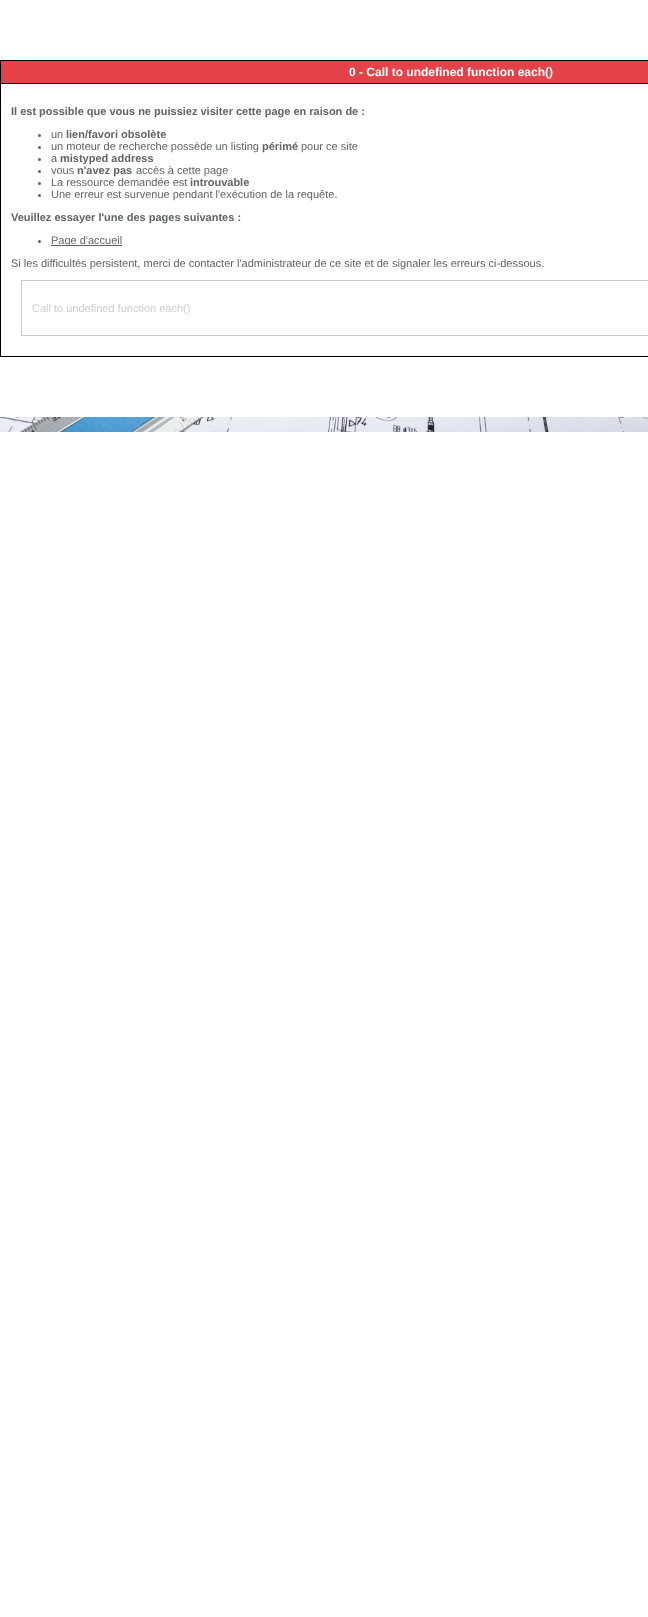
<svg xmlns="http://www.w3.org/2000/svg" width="648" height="1617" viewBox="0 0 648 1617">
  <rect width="100%" height="100%" fill="rgb(255,255,255)"/>
  <rect x="0.5" y="60.5" width="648" height="296" fill="none" stroke="rgb(0,0,0)"/>
  <rect x="1" y="61" width="647" height="22" fill="rgb(228,66,73)"/>
  <rect x="1" y="83" width="647" height="1" fill="rgb(0,0,0)"/>
  <text x="349" y="76" font-family="Liberation Sans" font-size="12" font-weight="bold" fill="rgb(255,255,255)">0 - Call to undefined function each()</text>
  <text x="11" y="115" font-family="Liberation Sans" font-size="11" font-weight="bold" fill="rgb(95,101,101)">Il est possible que vous ne puissiez visiter cette page en raison de :</text>
  <circle cx="39.5" cy="135.5" r="1.5" fill="rgb(95,101,101)"/>
  <text x="51" y="138" font-family="Liberation Sans" font-size="11" fill="rgb(95,101,101)">un</text>
  <text x="66" y="138" font-family="Liberation Sans" font-size="11" font-weight="bold" fill="rgb(95,101,101)">lien/favori obsolète</text>
  <circle cx="39.5" cy="147.5" r="1.5" fill="rgb(95,101,101)"/>
  <text x="51" y="150" font-family="Liberation Sans" font-size="11" fill="rgb(95,101,101)">un moteur de recherche possède un listing</text>
  <text x="262" y="150" font-family="Liberation Sans" font-size="11" font-weight="bold" fill="rgb(95,101,101)">périmé</text>
  <text x="301" y="150" font-family="Liberation Sans" font-size="11" fill="rgb(95,101,101)">pour ce site</text>
  <circle cx="39.5" cy="159.5" r="1.5" fill="rgb(95,101,101)"/>
  <text x="51" y="162" font-family="Liberation Sans" font-size="11" fill="rgb(95,101,101)">a</text>
  <text x="60" y="162" font-family="Liberation Sans" font-size="11" font-weight="bold" fill="rgb(95,101,101)">mistyped address</text>
  <circle cx="39.5" cy="171.5" r="1.5" fill="rgb(95,101,101)"/>
  <text x="51" y="174" font-family="Liberation Sans" font-size="11" fill="rgb(95,101,101)">vous</text>
  <text x="77" y="174" font-family="Liberation Sans" font-size="11" font-weight="bold" fill="rgb(95,101,101)">n'avez pas</text>
  <text x="136" y="174" font-family="Liberation Sans" font-size="11" fill="rgb(95,101,101)">accès à cette page</text>
  <circle cx="39.5" cy="183.5" r="1.5" fill="rgb(95,101,101)"/>
  <text x="51" y="186" font-family="Liberation Sans" font-size="11" fill="rgb(95,101,101)">La ressource demandée est</text>
  <text x="190" y="186" font-family="Liberation Sans" font-size="11" font-weight="bold" fill="rgb(95,101,101)">introuvable</text>
  <circle cx="39.5" cy="195.5" r="1.5" fill="rgb(95,101,101)"/>
  <text x="51" y="198" font-family="Liberation Sans" font-size="11" fill="rgb(95,101,101)">Une erreur est survenue pendant l'exécution de la requête.</text>
  <text x="11" y="221" font-family="Liberation Sans" font-size="11" font-weight="bold" fill="rgb(95,101,101)">Veuillez essayer l'une des pages suivantes :</text>
  <circle cx="39.5" cy="241.5" r="1.5" fill="rgb(95,101,101)"/>
  <rect x="51" y="245" width="71" height="1" fill="rgb(95,101,101)"/>
  <g font-family="Liberation Sans" font-size="11" fill="rgb(95,101,101)">
    <text x="51" y="244">Page d'accueil</text>
    <text x="11" y="267">Si les difficultés persistent, merci de contacter l'administrateur de ce site et de signaler les erreurs ci-dessous.</text>
  </g>
  <rect x="21.5" y="280.5" width="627" height="55" fill="none" stroke="rgb(204,204,204)"/>
  <text x="32" y="312" font-family="Liberation Sans" font-size="11" fill="rgb(204,204,204)">Call to undefined function each()</text>
  <image x="0" y="417" width="648" height="15" href="pic1.png"/>
</svg>
